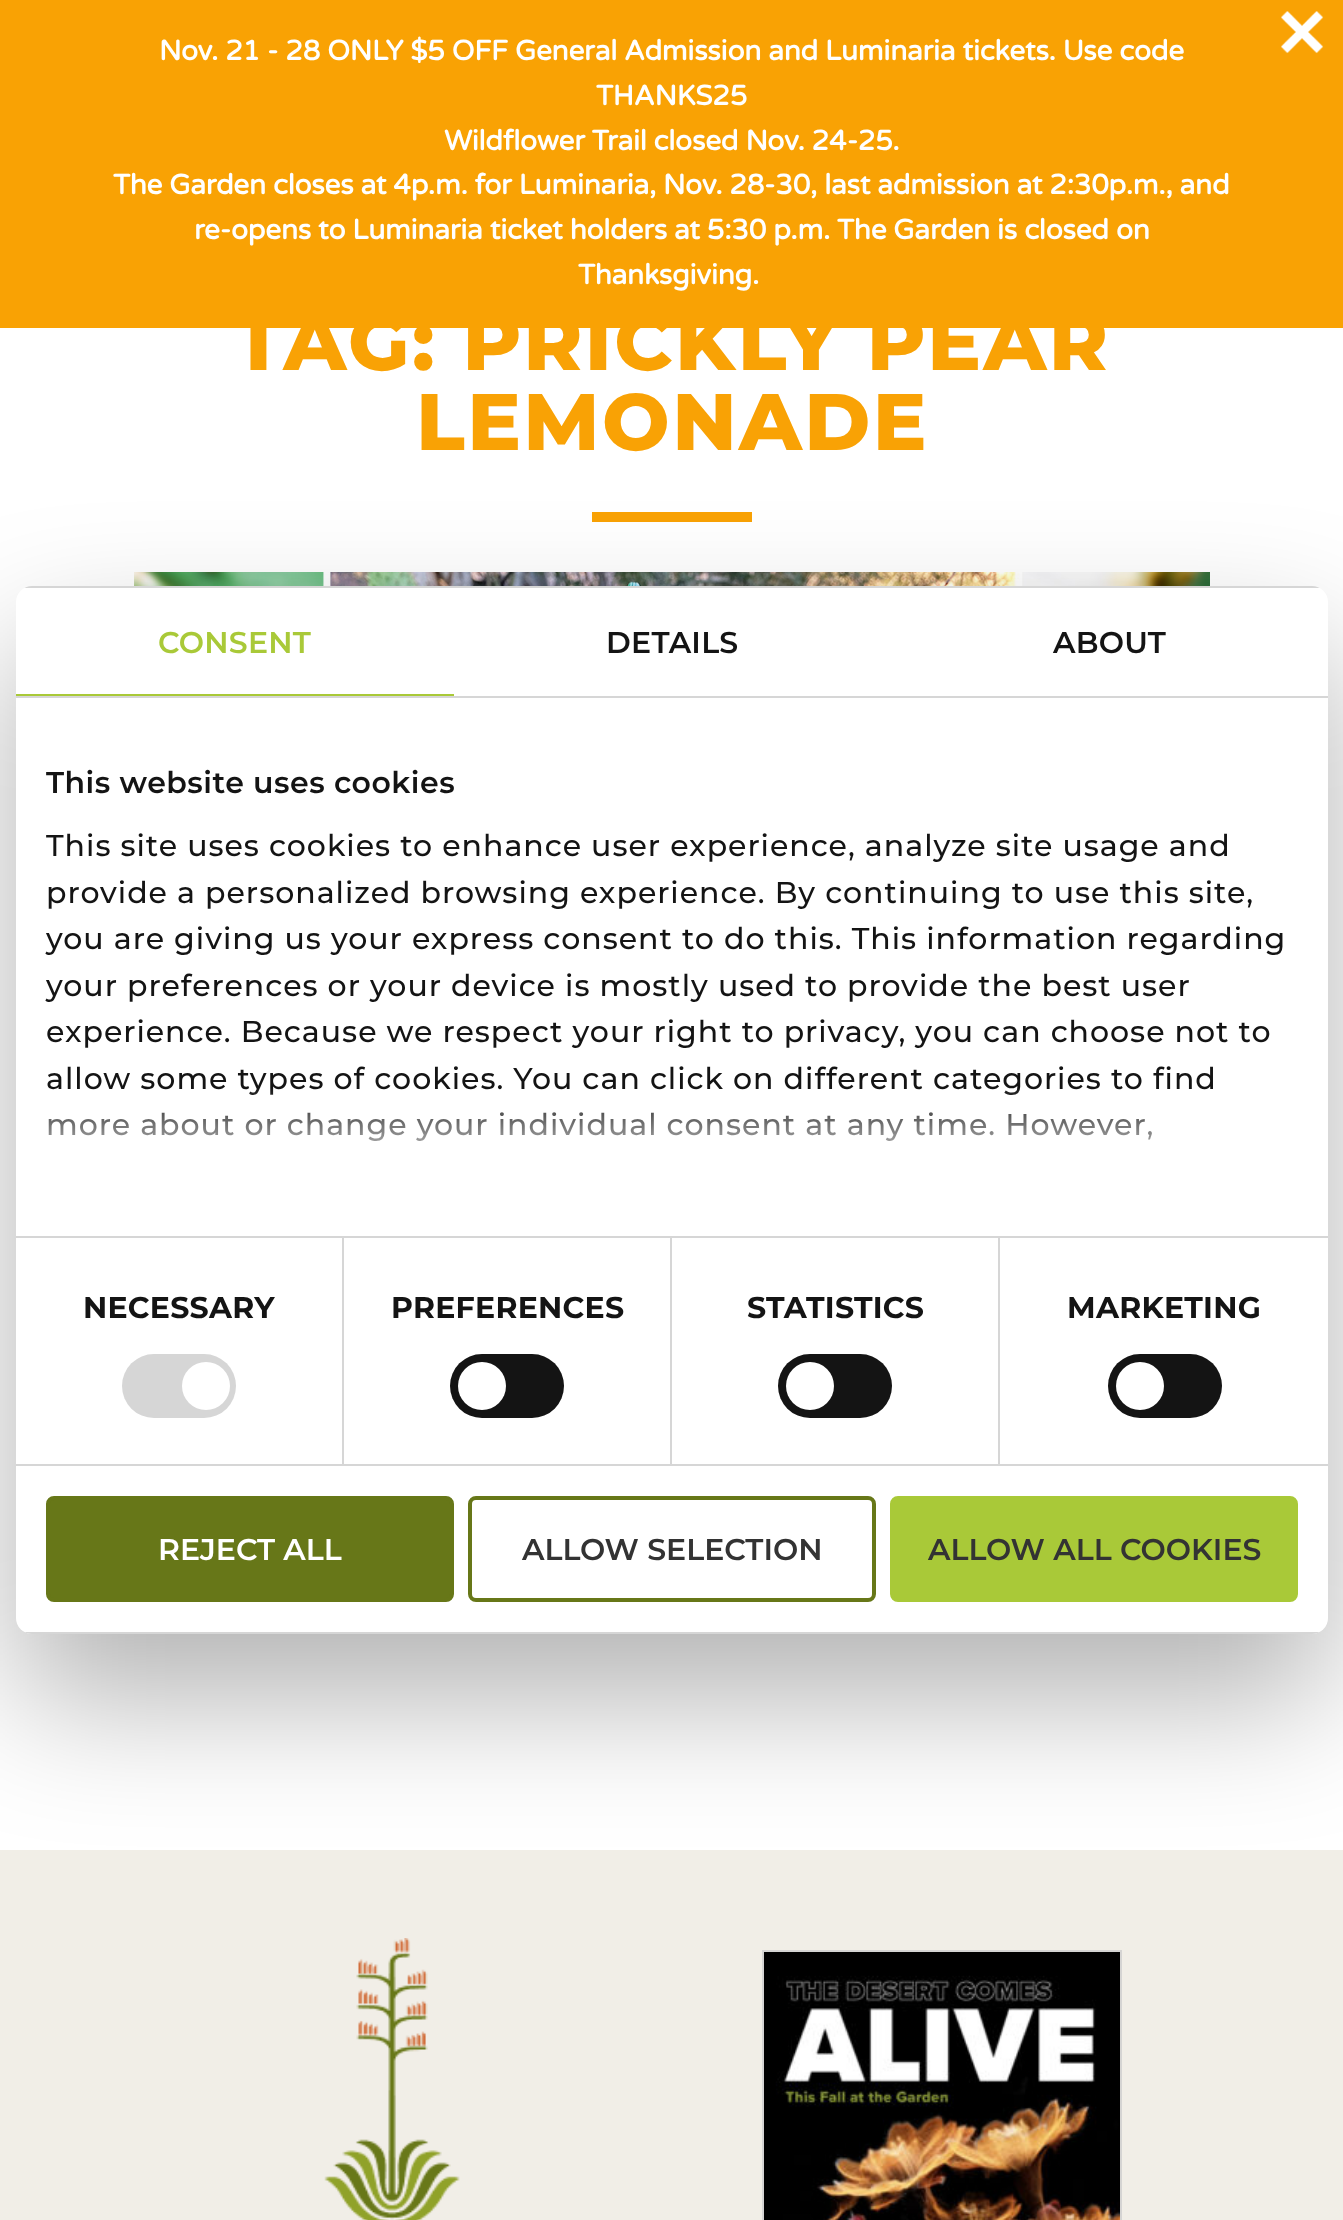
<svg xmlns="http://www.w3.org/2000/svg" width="1343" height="2220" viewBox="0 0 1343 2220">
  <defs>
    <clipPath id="clip1"><rect x="16" y="586" width="1312" height="1048" rx="16"/></clipPath>
    <linearGradient id="g1" gradientUnits="userSpaceOnUse" x1="659" y1="1237" x2="659" y2="1087"><stop offset="0" stop-color="rgb(255,255,255)"/><stop offset="0.5" stop-color="rgb(255,255,255)" stop-opacity="0.8"/><stop offset="1" stop-color="rgb(255,255,255)" stop-opacity="0"/></linearGradient>
  </defs>
  <rect width="100%" height="100%" fill="rgb(255,255,255)"/>
  <text x="233" y="370" font-family="Montserrat" font-size="80" font-weight="800" letter-spacing="2.4" fill="rgb(249,162,5)">TAG: PRICKLY PEAR</text>
  <rect x="0" y="0" width="1343" height="328" fill="rgb(249,162,4)"/>
  <image x="1281" y="11" width="43" height="43" href="pic1.png"/>
  <g font-family="Varela Round" font-size="28" font-weight="bold" letter-spacing="-0.2" fill="rgb(255,255,255)">
    <text x="159" y="60">Nov. 21 - 28 ONLY $5 OFF General Admission and Luminaria tickets. Use code</text>
    <text x="596" y="105">THANKS25</text>
    <text x="444" y="150">Wildflower Trail closed Nov. 24-25.</text>
    <text x="113" y="194">The Garden closes at 4p.m. for Luminaria, Nov. 28-30, last admission at 2:30p.m., and</text>
    <text x="194" y="239">re-opens to Luminaria ticket holders at 5:30 p.m. The Garden is closed on</text>
    <text x="578" y="284">Thanksgiving.</text>
  </g>
  <text x="416" y="450" font-family="Montserrat" font-size="80" font-weight="800" letter-spacing="2.4" fill="rgb(249,162,5)">LEMONADE</text>
  <rect x="592" y="512" width="160" height="10" fill="rgb(249,162,5)"/>
  <image x="134" y="572" width="1076" height="14" href="pic2.png"/>
  <rect x="0" y="1850" width="1343" height="370" fill="rgb(241,238,231)"/>
  <image x="324" y="1938" width="136" height="282" href="pic3.png"/>
  <rect x="762" y="1950" width="360" height="2" fill="rgb(213,212,211)"/>
  <rect x="1120" y="1950" width="2" height="270" fill="rgb(213,212,211)"/>
  <rect x="762" y="1950" width="2" height="270" fill="rgb(213,212,211)"/>
  <image x="764" y="1952" width="356" height="268" href="pic4.png"/>
  <rect x="16" y="650" width="1312" height="1048" rx="16" fill="rgba(0,0,0,0.3)" filter="blur(68px)"/>
  <rect x="16" y="586" width="1312" height="1048" rx="16" fill="rgb(255,255,255)"/>
  <g clip-path="url(#clip1)">
    <rect x="16" y="586" width="1312" height="2" fill="rgb(214,214,214)"/>
  </g>
  <rect x="16" y="696" width="1312" height="2" fill="rgb(214,214,214)"/>
  <rect x="16" y="694" width="438" height="2" fill="rgb(169,201,56)"/>
  <text x="158" y="653" font-family="Montserrat" font-size="30" font-weight="600" letter-spacing="0.25" fill="rgb(169,201,56)">CONSENT</text>
  <g font-family="Montserrat" font-size="30" font-weight="600" letter-spacing="0.25" fill="rgb(20,20,20)">
    <text x="606" y="653">DETAILS</text>
    <text x="1053" y="653">ABOUT</text>
  </g>
  <rect x="16" y="1236" width="1312" height="2" fill="rgb(214,214,214)"/>
  <text x="46" y="793" font-family="Montserrat" font-size="30" font-weight="600" letter-spacing="0.5" fill="rgb(20,20,20)">This website uses cookies</text>
  <g font-family="Montserrat" font-size="30" font-weight="500" letter-spacing="1" fill="rgb(20,20,20)">
    <text>
      <tspan x="46" y="856">This site uses cookies to enhance user experience, analyze site usage and</tspan>
      <tspan x="46" y="903">provide a personalized browsing experience. By continuing to use this site,</tspan>
      <tspan x="46" y="949">you are giving us your express consent to do this. This information regarding</tspan>
      <tspan x="46" y="996">your preferences or your device is mostly used to provide the best user</tspan>
      <tspan x="46" y="1042">experience. Because we respect your right to privacy, you can choose not to</tspan>
      <tspan x="46" y="1089">allow some types of cookies. You can click on different categories to find</tspan>
      <tspan x="46" y="1135">more about or change your individual consent at any time. However,</tspan>
    </text>
  </g>
  <rect x="48" y="1089" width="1104" height="52" fill="url(#g1)"/>
  <rect x="16" y="1464" width="1312" height="2" fill="rgb(214,214,214)"/>
  <rect x="342" y="1238" width="2" height="226" fill="rgb(214,214,214)"/>
  <text x="83" y="1318" font-family="Montserrat" font-size="30" font-weight="bold" letter-spacing="0.25" fill="rgb(20,20,20)">NECESSARY</text>
  <rect x="122" y="1354" width="114" height="64" rx="32" fill="rgb(214,214,214)"/>
  <circle cx="206" cy="1386" r="24" fill="rgb(255,255,255)"/>
  <rect x="670" y="1238" width="2" height="226" fill="rgb(214,214,214)"/>
  <text x="391" y="1318" font-family="Montserrat" font-size="30" font-weight="bold" letter-spacing="0.25" fill="rgb(20,20,20)">PREFERENCES</text>
  <rect x="450" y="1354" width="114" height="64" rx="32" fill="rgb(20,20,20)"/>
  <circle cx="482" cy="1386" r="24" fill="rgb(255,255,255)"/>
  <rect x="998" y="1238" width="2" height="226" fill="rgb(214,214,214)"/>
  <text x="747" y="1318" font-family="Montserrat" font-size="30" font-weight="bold" letter-spacing="0.25" fill="rgb(20,20,20)">STATISTICS</text>
  <rect x="778" y="1354" width="114" height="64" rx="32" fill="rgb(20,20,20)"/>
  <circle cx="810" cy="1386" r="24" fill="rgb(255,255,255)"/>
  <text x="1067" y="1318" font-family="Montserrat" font-size="30" font-weight="bold" letter-spacing="0.25" fill="rgb(20,20,20)">MARKETING</text>
  <rect x="1108" y="1354" width="114" height="64" rx="32" fill="rgb(20,20,20)"/>
  <circle cx="1140" cy="1386" r="24" fill="rgb(255,255,255)"/>
  <g clip-path="url(#clip1)">
    <rect x="16" y="1632" width="1312" height="2" fill="rgb(214,214,214)"/>
  </g>
  <rect x="48" y="1498" width="404" height="102" rx="6" fill="rgb(103,119,24)" stroke="rgb(103,119,24)" stroke-width="4"/>
  <text x="158" y="1560" font-family="Montserrat" font-size="30" font-weight="600" fill="rgb(255,255,255)">REJECT ALL</text>
  <rect x="470" y="1498" width="404" height="102" rx="6" fill="none" stroke="rgb(103,119,24)" stroke-width="4"/>
  <text x="522" y="1560" font-family="Montserrat" font-size="30" font-weight="600" fill="rgb(51,51,51)">ALLOW SELECTION</text>
  <rect x="892" y="1498" width="404" height="102" rx="6" fill="rgb(169,201,56)" stroke="rgb(169,201,56)" stroke-width="4"/>
  <text x="928" y="1560" font-family="Montserrat" font-size="30" font-weight="600" fill="rgb(51,51,51)">ALLOW ALL COOKIES</text>
</svg>
